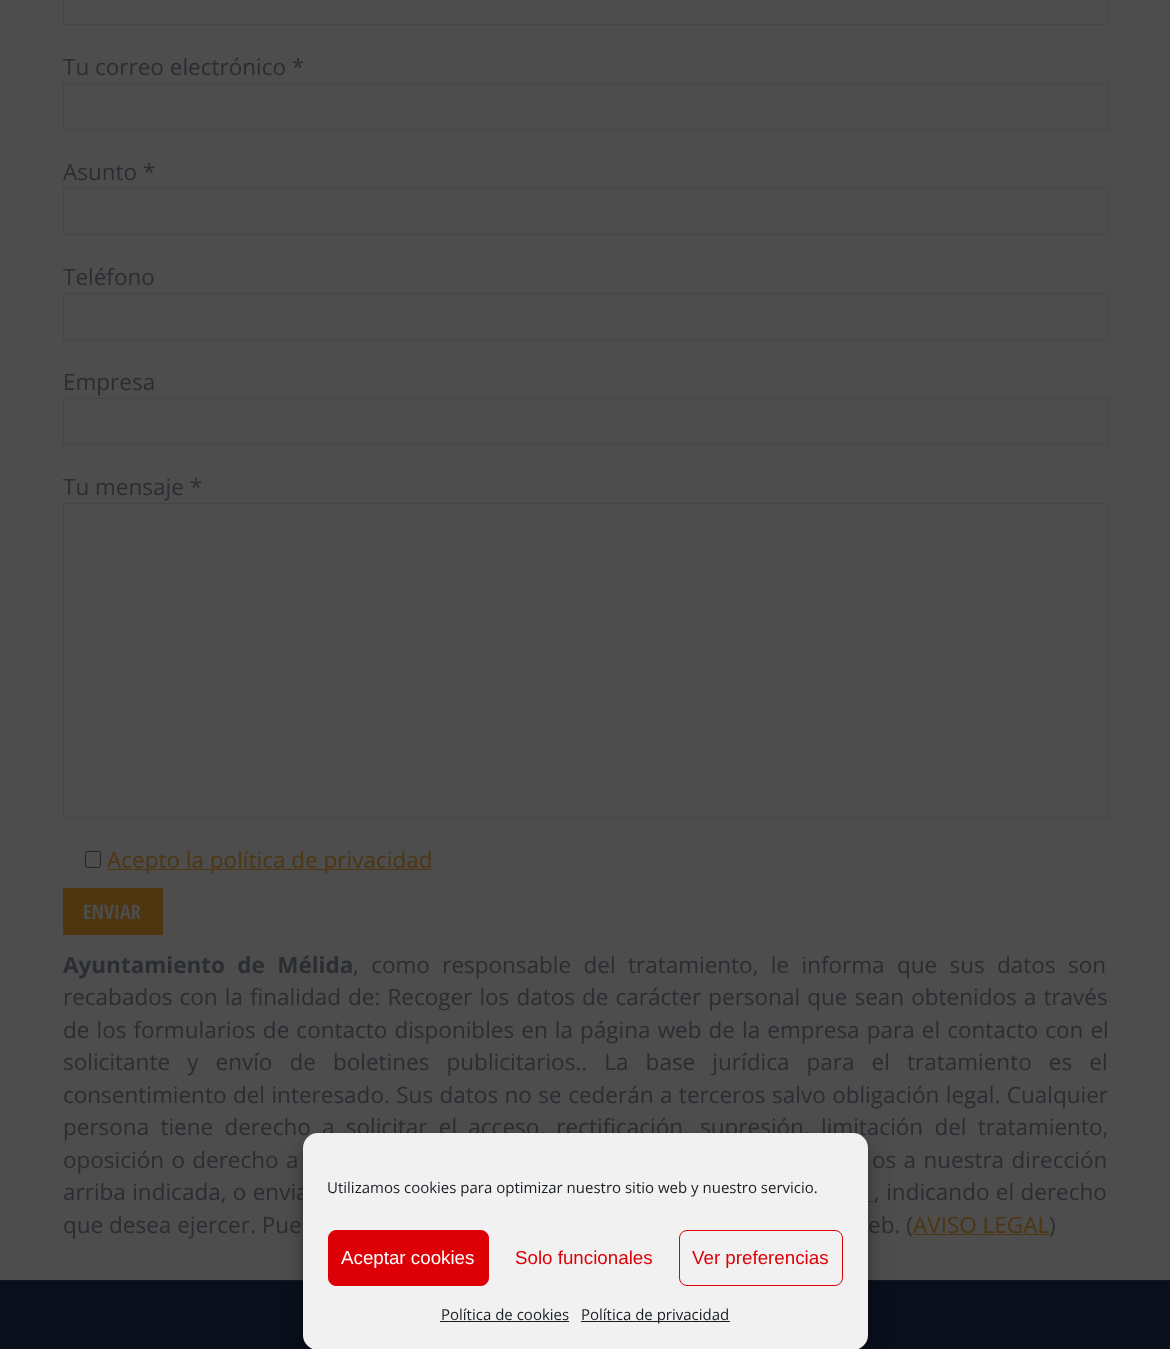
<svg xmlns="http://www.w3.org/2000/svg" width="1170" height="1349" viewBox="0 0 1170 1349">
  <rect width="100%" height="100%" fill="rgb(77,77,77)"/>
  <rect x="63.5" y="-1.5" width="1044" height="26" rx="0.5" fill="none" stroke="rgb(69,69,69)"/>
  <text x="63" y="75" font-family="Open Sans" font-size="22.5" fill="rgb(42,45,49)">Tu correo electrónico *</text>
  <rect x="63.5" y="83.5" width="1044" height="46" rx="0.5" fill="none" stroke="rgb(69,69,69)"/>
  <text x="63" y="180" font-family="Open Sans" font-size="22.5" fill="rgb(42,45,49)">Asunto *</text>
  <rect x="63.5" y="188.5" width="1044" height="46" rx="0.5" fill="none" stroke="rgb(69,69,69)"/>
  <text x="63" y="285" font-family="Open Sans" font-size="22.5" fill="rgb(42,45,49)">Teléfono</text>
  <rect x="63.5" y="293.5" width="1044" height="46" rx="0.5" fill="none" stroke="rgb(69,69,69)"/>
  <text x="63" y="390" font-family="Open Sans" font-size="22.5" fill="rgb(42,45,49)">Empresa</text>
  <rect x="63.5" y="398.5" width="1044" height="46" rx="0.5" fill="none" stroke="rgb(69,69,69)"/>
  <text x="63" y="495" font-family="Open Sans" font-size="22.5" fill="rgb(42,45,49)">Tu mensaje *</text>
  <rect x="63.5" y="503.5" width="1044" height="314" rx="0.5" fill="none" stroke="rgb(69,69,69)"/>
  <rect x="85.5" y="851.5" width="15" height="16" rx="2" fill="none" stroke="rgb(35,35,35)"/>
  <rect x="108" y="869" width="325" height="1" fill="rgb(77,54,16)"/>
  <text x="107" y="868" font-family="Open Sans" font-size="22.5" fill="rgb(77,54,16)">Acepto la política de privacidad</text>
  <rect x="63" y="888" width="100" height="47" fill="rgb(77,54,16)"/>
  <text x="83" y="919" font-family="Open Sans Condensed" font-size="20" font-weight="bold" fill="rgb(77,77,77)">ENVIAR</text>
  <text x="63" y="973" word-spacing="6.5" font-family="Open Sans" font-size="22.5" font-weight="bold" fill="rgb(42,45,49)">Ayuntamiento de Mélida</text>
  <g font-family="Open Sans" font-size="22.5" fill="rgb(42,45,49)">
    <text x="353" y="973" word-spacing="6.5">, como responsable del tratamiento, le informa que sus datos son</text>
    <text>
      <tspan x="63" y="1005" word-spacing="1.25">recabados con la finalidad de: Recoger los datos de carácter personal que sean obtenidos a través</tspan>
      <tspan x="63" y="1038" word-spacing="1.25">de los formularios de contacto disponibles en la página web de la empresa para el contacto con el</tspan>
      <tspan x="63" y="1070" word-spacing="11.25">solicitante y envío de boletines publicitarios.. La base jurídica para el tratamiento es el</tspan>
      <tspan x="63" y="1103" word-spacing="0.6">consentimiento del interesado. Sus datos no se cederán a terceros salvo obligación legal. Cualquier</tspan>
      <tspan x="63" y="1135" word-spacing="5.4">persona tiene derecho a solicitar el acceso, rectificación, supresión, limitación del tratamiento,</tspan>
      <tspan x="63" y="1168" word-spacing="1.5">oposición o derecho a</tspan>
    </text>
    <text x="872" y="1168" word-spacing="1.5">os a nuestra dirección</text>
    <text x="63" y="1200" word-spacing="0.5">arriba indicada, o envia</text>
  </g>
  <rect x="868" y="1201" width="6" height="1" fill="rgb(77,54,16)"/>
  <g font-family="Open Sans" font-size="22.5" fill="rgb(42,45,49)">
    <text x="874" y="1200" word-spacing="0.5">, indicando el derecho</text>
    <text x="63" y="1233">que desea ejercer. Pue</text>
    <text x="868" y="1233">eb. (</text>
  </g>
  <text x="913" y="1233" font-family="Open Sans" font-size="22.5" fill="rgb(77,54,16)">AVISO LEGAL</text>
  <rect x="913" y="1234" width="136" height="1" fill="rgb(77,54,16)"/>
  <text x="1049" y="1233" font-family="Open Sans" font-size="22.5" fill="rgb(42,45,49)">)</text>
  <rect x="0" y="1281" width="1170" height="68" fill="rgb(9,16,28)"/>
  <rect x="0" y="1280" width="1170" height="1" fill="rgb(17,23,34)"/>
  <rect x="303" y="1140" width="565" height="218" rx="15" fill="rgba(0,0,0,0.23)" filter="blur(4px)"/>
  <rect x="303" y="1145" width="565" height="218" rx="15" fill="rgba(0,0,0,0.19)" filter="blur(12.5px)"/>
  <rect x="303" y="1133" width="565" height="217" rx="15" fill="rgb(241,241,241)"/>
  <text x="327" y="1193" font-family="Open Sans" font-size="15" fill="rgb(25,30,35)">Utilizamos cookies para optimizar nuestro sitio web y nuestro servicio.</text>
  <rect x="328.5" y="1230.5" width="160" height="55" rx="7.5" fill="rgb(221,0,7)" stroke="rgb(221,0,7)"/>
  <text x="341" y="1264" font-family="Liberation Sans" font-size="18.75" fill="rgb(255,255,255)">Aceptar cookies</text>
  <text x="515" y="1264" font-family="Liberation Sans" font-size="18.75" fill="rgb(221,0,7)">Solo funcionales</text>
  <rect x="679.5" y="1230.5" width="163" height="55" rx="7.5" fill="none" stroke="rgb(221,0,7)"/>
  <text x="692" y="1264" font-family="Liberation Sans" font-size="18.75" fill="rgb(221,0,7)">Ver preferencias</text>
  <text x="441" y="1320" font-family="Open Sans" font-size="15" fill="rgb(25,30,35)">Política de cookies</text>
  <rect x="440" y="1321" width="129" height="1" fill="rgb(25,30,35)"/>
  <rect x="581" y="1321" width="149" height="1" fill="rgb(25,30,35)"/>
  <text x="581" y="1320" font-family="Open Sans" font-size="15" fill="rgb(25,30,35)">Política de privacidad</text>
</svg>
